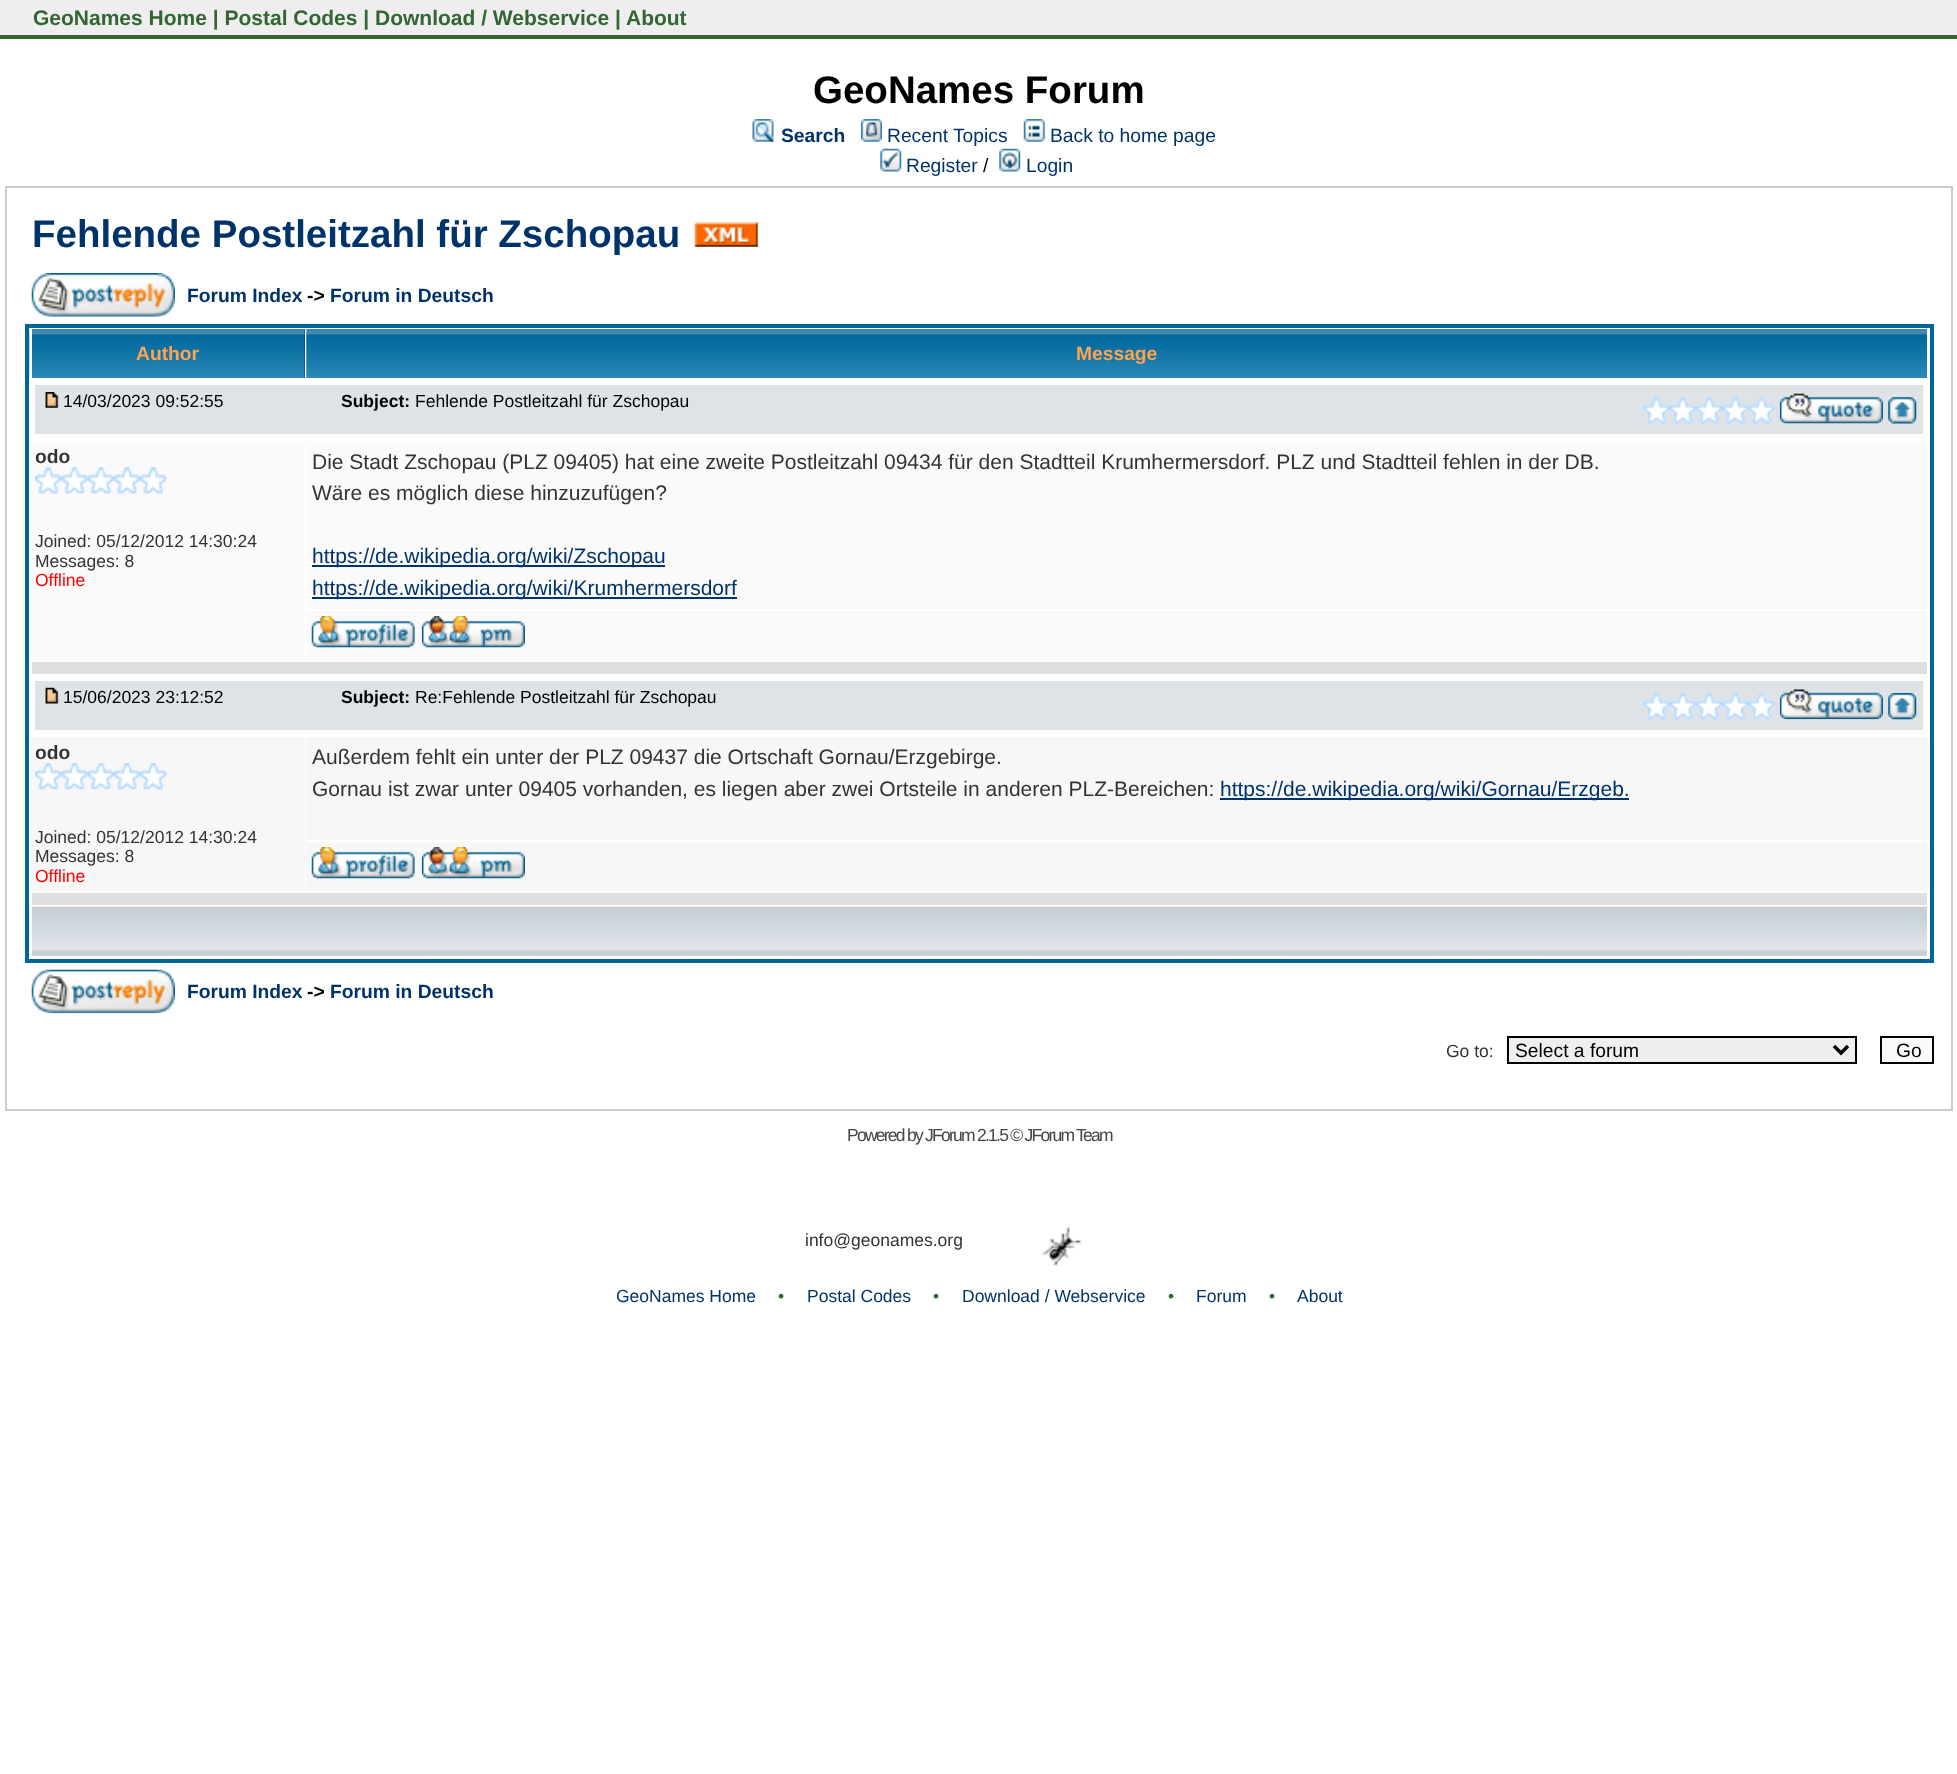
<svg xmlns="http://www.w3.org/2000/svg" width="1957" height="1774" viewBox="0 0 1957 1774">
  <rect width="100%" height="100%" fill="rgb(255,255,255)"/>
  <rect x="0" y="0" width="1957" height="35" fill="rgb(238,238,238)"/>
  <rect x="0" y="35" width="1957" height="4" fill="rgb(51,102,51)"/>
  <text x="33" y="25" font-family="Liberation Sans" font-size="21" font-weight="bold" fill="rgb(51,102,51)">GeoNames Home | Postal Codes | Download / Webservice | About</text>
  <text x="813" y="103" font-family="Liberation Sans" font-size="38.5" font-weight="bold" fill="rgb(0,0,0)">GeoNames Forum</text>
  <image x="752" y="119" width="22" height="23" href="pic1.png"/>
  <text x="781" y="142" font-family="Liberation Sans" font-size="19.25" font-weight="bold" fill="rgb(1,51,107)">Search</text>
  <image x="861" y="119" width="21" height="23" href="pic2.png"/>
  <text x="887" y="142" font-family="Liberation Sans" font-size="19.25" fill="rgb(1,51,107)">Recent Topics</text>
  <image x="1023" y="119" width="22" height="23" href="pic3.png"/>
  <text x="1050" y="142" font-family="Liberation Sans" font-size="19.25" fill="rgb(1,51,107)">Back to home page</text>
  <image x="880" y="148" width="22" height="24" href="pic4.png"/>
  <text x="906" y="172" font-family="Liberation Sans" font-size="19.25" fill="rgb(1,51,107)">Register</text>
  <text x="983" y="172" font-family="Liberation Sans" font-size="19.25" fill="rgb(0,0,0)">/</text>
  <image x="999" y="148" width="22" height="24" href="pic5.png"/>
  <text x="1026" y="172" font-family="Liberation Sans" font-size="19.25" fill="rgb(1,51,107)">Login</text>
  <rect x="6" y="187" width="1946" height="923" fill="none" stroke="rgb(204,204,204)" stroke-width="2"/>
  <text x="32" y="247" font-family="Liberation Sans" font-size="38.5" font-weight="bold" fill="rgb(1,51,107)">Fehlende Postleitzahl für Zschopau</text>
  <image x="694" y="222" width="64" height="25" href="pic6.png"/>
  <image x="31" y="273" width="144" height="44" href="pic7.png"/>
  <text x="187" y="302" font-family="Liberation Sans" font-size="19.25" font-weight="bold" fill="rgb(1,51,107)">Forum Index</text>
  <text x="307" y="302" font-family="Liberation Sans" font-size="19.25" font-weight="bold" fill="rgb(0,0,0)">-&gt;</text>
  <text x="330" y="302" font-family="Liberation Sans" font-size="19.25" font-weight="bold" fill="rgb(1,51,107)">Forum in Deutsch</text>
  <rect x="27" y="326" width="1905" height="635" fill="none" stroke="rgb(0,102,153)" stroke-width="4"/>
  <rect x="304" y="329" width="1" height="49" fill="rgb(1,51,107)"/>
  <image x="29" y="329" width="276" height="49" href="pic8.png"/>
  <rect x="30" y="329" width="2" height="49" fill="rgb(255,255,255)"/>
  <text x="136" y="360" font-family="Liberation Sans" font-size="19.25" font-weight="bold" fill="rgb(255,163,79)">Author</text>
  <image x="306" y="329" width="1621" height="49" href="pic9.png"/>
  <text x="1076" y="360" font-family="Liberation Sans" font-size="19.25" font-weight="bold" fill="rgb(255,163,79)">Message</text>
  <rect x="35" y="385" width="1888" height="49" fill="rgb(222,227,231)"/>
  <image x="45" y="392" width="14" height="16" href="pic10.png"/>
  <text x="63" y="407" font-family="Liberation Sans" font-size="17.5" fill="rgb(0,0,0)">14/03/2023 09:52:55</text>
  <text x="341" y="407" font-family="Liberation Sans" font-size="17.5" font-weight="bold" fill="rgb(0,0,0)">Subject:</text>
  <text x="415" y="407" font-family="Liberation Sans" font-size="17.5" fill="rgb(0,0,0)">Fehlende Postleitzahl für Zschopau</text>
  <image x="1643" y="397" width="27" height="27" href="pic11.png"/>
  <image x="1669" y="397" width="27" height="27" href="pic12.png"/>
  <image x="1696" y="397" width="26" height="27" href="pic13.png"/>
  <image x="1722" y="397" width="27" height="27" href="pic14.png"/>
  <image x="1748" y="397" width="27" height="27" href="pic15.png"/>
  <image x="1779" y="393" width="104" height="31" href="pic16.png"/>
  <image x="1888" y="397" width="29" height="27" href="pic17.png"/>
  <rect x="30" y="441" width="275" height="219" fill="rgb(250,250,250)"/>
  <text x="35" y="463" font-family="Liberation Sans" font-size="19.25" font-weight="bold" fill="rgb(51,51,51)">odo</text>
  <image x="35" y="467" width="27" height="27" href="pic18.png"/>
  <image x="61" y="467" width="27" height="27" href="pic19.png"/>
  <image x="87" y="467" width="27" height="27" href="pic20.png"/>
  <image x="113" y="467" width="27" height="27" href="pic21.png"/>
  <image x="140" y="467" width="27" height="27" href="pic18.png"/>
  <g font-family="Liberation Sans" font-size="17.5" fill="rgb(51,51,51)">
    <text>
      <tspan x="35" y="547">Joined: 05/12/2012 14:30:24</tspan>
      <tspan x="35" y="567">Messages: 8</tspan>
    </text>
  </g>
  <text x="35" y="586" font-family="Liberation Sans" font-size="17.5" fill="rgb(255,0,0)">Offline</text>
  <rect x="306" y="441" width="1623" height="168" fill="rgb(250,250,250)"/>
  <g font-family="Liberation Sans" font-size="21" fill="rgb(51,51,51)">
    <text>
      <tspan x="312" y="469">Die Stadt Zschopau (PLZ 09405) hat eine zweite Postleitzahl 09434 für den Stadtteil Krumhermersdorf. PLZ und Stadtteil fehlen in der DB.</tspan>
      <tspan x="312" y="500">Wäre es möglich diese hinzuzufügen?</tspan>
    </text>
  </g>
  <rect x="312" y="565" width="353" height="2" fill="rgb(1,51,107)"/>
  <text x="312" y="563" font-family="Liberation Sans" font-size="21" fill="rgb(1,51,107)">https://de.wikipedia.org/wiki/Zschopau</text>
  <rect x="312" y="597" width="425" height="2" fill="rgb(1,51,107)"/>
  <text x="312" y="595" font-family="Liberation Sans" font-size="21" fill="rgb(1,51,107)">https://de.wikipedia.org/wiki/Krumhermersdorf</text>
  <rect x="306" y="611" width="1623" height="49" fill="rgb(250,250,250)"/>
  <image x="311" y="616" width="104" height="32" href="pic22.png"/>
  <image x="421" y="616" width="104" height="32" href="pic23.png"/>
  <rect x="32" y="662" width="1895" height="12" fill="rgb(223,223,223)"/>
  <rect x="35" y="681" width="1888" height="49" fill="rgb(222,227,231)"/>
  <image x="45" y="687" width="14" height="17" href="pic24.png"/>
  <text x="63" y="703" font-family="Liberation Sans" font-size="17.5" fill="rgb(0,0,0)">15/06/2023 23:12:52</text>
  <text x="341" y="703" font-family="Liberation Sans" font-size="17.5" font-weight="bold" fill="rgb(0,0,0)">Subject:</text>
  <text x="415" y="703" font-family="Liberation Sans" font-size="17.5" fill="rgb(0,0,0)">Re:Fehlende Postleitzahl für Zschopau</text>
  <image x="1643" y="693" width="27" height="27" href="pic25.png"/>
  <image x="1669" y="693" width="27" height="27" href="pic26.png"/>
  <image x="1696" y="693" width="26" height="27" href="pic27.png"/>
  <image x="1722" y="693" width="27" height="27" href="pic28.png"/>
  <image x="1748" y="693" width="27" height="27" href="pic29.png"/>
  <image x="1779" y="689" width="104" height="31" href="pic30.png"/>
  <image x="1888" y="693" width="29" height="27" href="pic31.png"/>
  <rect x="30" y="737" width="275" height="154" fill="rgb(247,247,248)"/>
  <text x="35" y="759" font-family="Liberation Sans" font-size="19.25" font-weight="bold" fill="rgb(51,51,51)">odo</text>
  <image x="35" y="763" width="27" height="27" href="pic32.png"/>
  <image x="61" y="763" width="27" height="27" href="pic33.png"/>
  <image x="87" y="763" width="27" height="27" href="pic34.png"/>
  <image x="113" y="763" width="27" height="27" href="pic35.png"/>
  <image x="140" y="763" width="27" height="27" href="pic32.png"/>
  <g font-family="Liberation Sans" font-size="17.5" fill="rgb(51,51,51)">
    <text>
      <tspan x="35" y="843">Joined: 05/12/2012 14:30:24</tspan>
      <tspan x="35" y="862">Messages: 8</tspan>
    </text>
  </g>
  <text x="35" y="882" font-family="Liberation Sans" font-size="17.5" fill="rgb(255,0,0)">Offline</text>
  <rect x="306" y="737" width="1623" height="103" fill="rgb(247,247,248)"/>
  <g font-family="Liberation Sans" font-size="21" fill="rgb(51,51,51)">
    <text>
      <tspan x="312" y="764">Außerdem fehlt ein unter der PLZ 09437 die Ortschaft Gornau/Erzgebirge.</tspan>
      <tspan x="312" y="796">Gornau ist zwar unter 09405 vorhanden, es liegen aber zwei Ortsteile in anderen PLZ-Bereichen:</tspan>
    </text>
  </g>
  <rect x="1220" y="798" width="409" height="2" fill="rgb(1,51,107)"/>
  <text x="1220" y="796" font-family="Liberation Sans" font-size="21" fill="rgb(1,51,107)">https://de.wikipedia.org/wiki/Gornau/Erzgeb.</text>
  <rect x="306" y="842" width="1623" height="49" fill="rgb(247,247,248)"/>
  <image x="311" y="847" width="104" height="32" href="pic36.png"/>
  <image x="421" y="847" width="104" height="32" href="pic37.png"/>
  <rect x="32" y="893" width="1895" height="12" fill="rgb(223,223,223)"/>
  <image x="29" y="906" width="1900" height="52" href="pic38.png"/>
  <rect x="1927" y="907" width="2" height="50" fill="rgb(255,255,255)"/>
  <rect x="30" y="956" width="1899" height="2" fill="rgb(255,255,255)"/>
  <rect x="30" y="907" width="2" height="50" fill="rgb(255,255,255)"/>
  <image x="31" y="969" width="144" height="45" href="pic39.png"/>
  <text x="187" y="998" font-family="Liberation Sans" font-size="19.25" font-weight="bold" fill="rgb(1,51,107)">Forum Index</text>
  <text x="307" y="998" font-family="Liberation Sans" font-size="19.25" font-weight="bold" fill="rgb(0,0,0)">-&gt;</text>
  <text x="330" y="998" font-family="Liberation Sans" font-size="19.25" font-weight="bold" fill="rgb(1,51,107)">Forum in Deutsch</text>
  <text x="1446" y="1057" font-family="Liberation Sans" font-size="17.5" fill="rgb(51,51,51)">Go to:</text>
  <rect x="1508" y="1037" width="348" height="26" fill="rgb(239,239,239)" stroke="rgb(0,0,0)" stroke-width="2"/>
  <path d="M1834 1046L1841 1053L1848 1046" fill="none" stroke="rgb(0,0,0)" stroke-width="3.5"/>
  <text x="1515" y="1057" font-family="Liberation Sans" font-size="19.25" fill="rgb(0,0,0)">Select a forum</text>
  <rect x="1881" y="1037" width="52" height="26" fill="rgb(250,250,250)" stroke="rgb(0,0,0)" stroke-width="2"/>
  <text x="1896" y="1057" font-family="Liberation Sans" font-size="19.25" fill="rgb(0,0,0)">Go</text>
  <text x="847" y="1141" font-family="Liberation Sans" font-size="17.5" letter-spacing="-1.75" fill="rgb(68,68,68)">Powered by JForum 2.1.5 © JForum Team</text>
  <text x="805" y="1246" font-family="Liberation Sans" font-size="17.5" fill="rgb(51,51,51)">info@geonames.org</text>
  <image x="1042" y="1226" width="40" height="40" href="pic40.png"/>
  <text x="616" y="1302" font-family="Liberation Sans" font-size="17.5" fill="rgb(1,51,107)">GeoNames Home</text>
  <text x="778" y="1302" font-family="Liberation Sans" font-size="17.5" fill="rgb(51,102,51)">•</text>
  <text x="807" y="1302" font-family="Liberation Sans" font-size="17.5" fill="rgb(1,51,107)">Postal Codes</text>
  <text x="933" y="1302" font-family="Liberation Sans" font-size="17.5" fill="rgb(51,102,51)">•</text>
  <text x="962" y="1302" font-family="Liberation Sans" font-size="17.5" fill="rgb(1,51,107)">Download / Webservice</text>
  <text x="1168" y="1302" font-family="Liberation Sans" font-size="17.5" fill="rgb(51,102,51)">•</text>
  <text x="1196" y="1302" font-family="Liberation Sans" font-size="17.5" fill="rgb(1,51,107)">Forum</text>
  <text x="1269" y="1302" font-family="Liberation Sans" font-size="17.5" fill="rgb(51,102,51)">•</text>
  <text x="1297" y="1302" font-family="Liberation Sans" font-size="17.5" fill="rgb(1,51,107)">About</text>
</svg>
